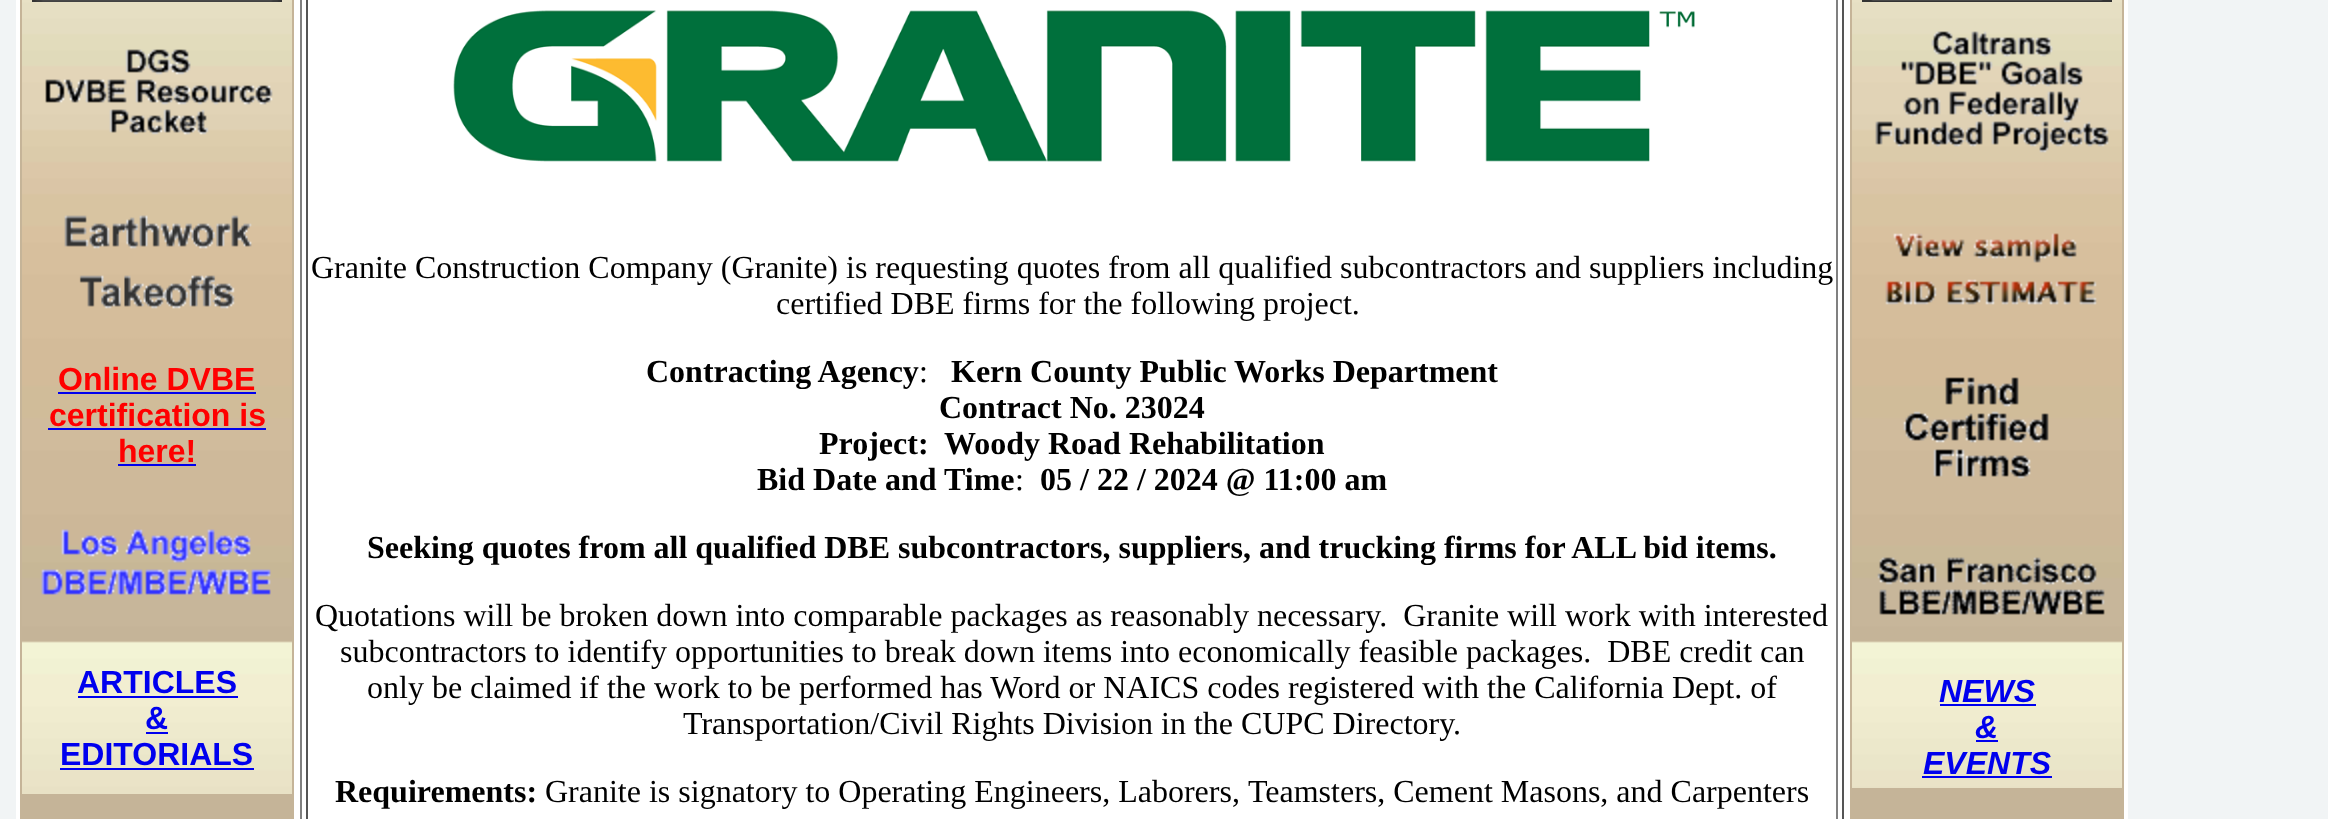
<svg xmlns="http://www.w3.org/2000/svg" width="2328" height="819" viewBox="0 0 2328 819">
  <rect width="100%" height="100%" fill="rgb(241,244,245)"/>
  <rect x="16" y="0" width="2112" height="819" fill="rgb(255,255,255)"/>
  <rect x="20" y="0" width="274" height="819" fill="rgb(197,180,152)"/>
  <image x="22" y="0" width="270" height="794" href="pic1.png"/>
  <image x="32" y="0" width="250" height="2" href="pic2.png"/>
  <image x="45" y="49" width="228" height="86" href="pic3.png"/>
  <image x="64" y="215" width="188" height="94" href="pic4.png"/>
  <text x="58" y="390" font-family="Liberation Sans" font-size="32" font-weight="bold" fill="rgb(255,0,0)">Online DVBE</text>
  <rect x="58" y="392" width="198" height="2" fill="rgb(0,0,238)"/>
  <text x="49" y="426" font-family="Liberation Sans" font-size="32" font-weight="bold" fill="rgb(255,0,0)">certification is</text>
  <rect x="48" y="428" width="218" height="2" fill="rgb(0,0,238)"/>
  <text x="118" y="462" font-family="Liberation Sans" font-size="32" font-weight="bold" fill="rgb(255,0,0)">here!</text>
  <rect x="118" y="464" width="78" height="2" fill="rgb(0,0,238)"/>
  <image x="41" y="529" width="230" height="66" href="pic5.png"/>
  <text x="77" y="693" font-family="Liberation Sans" font-size="32" font-weight="bold" fill="rgb(0,0,238)">ARTICLES</text>
  <rect x="78" y="696" width="160" height="2" fill="rgb(0,0,238)"/>
  <text x="145" y="729" font-family="Liberation Sans" font-size="32" font-weight="bold" fill="rgb(0,0,238)">&amp;</text>
  <rect x="146" y="732" width="22" height="2" fill="rgb(0,0,238)"/>
  <text x="60" y="765" font-family="Liberation Sans" font-size="32" font-weight="bold" fill="rgb(0,0,238)">EDITORIALS</text>
  <rect x="60" y="768" width="194" height="2" fill="rgb(0,0,238)"/>
  <rect x="1842" y="0" width="2" height="819" fill="rgb(85,85,85)"/>
  <rect x="300" y="0" width="2" height="819" fill="rgb(128,128,128)"/>
  <rect x="1836" y="0" width="2" height="819" fill="rgb(128,128,128)"/>
  <rect x="306" y="0" width="2" height="819" fill="rgb(85,85,85)"/>
  <image x="453" y="10" width="1242" height="152" href="pic6.png"/>
  <g font-family="Liberation Serif" font-size="32" fill="rgb(0,0,0)">
    <text x="311" y="278">Granite Construction Company (Granite) is requesting quotes from all qualified subcontractors and suppliers including</text>
    <text x="776" y="314">certified DBE firms for the following project.</text>
  </g>
  <text x="646" y="382" font-family="Liberation Serif" font-size="32" font-weight="bold" fill="rgb(0,0,0)">Contracting Agency</text>
  <text x="919" y="382" font-family="Liberation Serif" font-size="32" fill="rgb(0,0,0)">:</text>
  <g font-family="Liberation Serif" font-size="32" font-weight="bold" fill="rgb(0,0,0)">
    <text x="951" y="382">Kern County Public</text>
    <text x="1234" y="382">Works Department</text>
    <text x="939" y="418">Contract No. 23024</text>
    <text x="819" y="454" xml:space="preserve">Project:  Woody Road Rehabilitation</text>
    <text x="757" y="490">Bid Date and Time</text>
  </g>
  <text x="1015" y="490" font-family="Liberation Serif" font-size="32" fill="rgb(0,0,0)">:</text>
  <g font-family="Liberation Serif" font-size="32" font-weight="bold" fill="rgb(0,0,0)">
    <text x="1040" y="490">05 / 22 / 2024 @ 11:00 am</text>
    <text x="367" y="558">Seeking quotes from all qualified DBE subcontractors, suppliers, and trucking firms for ALL bid items.</text>
  </g>
  <g font-family="Liberation Serif" font-size="32" fill="rgb(0,0,0)">
    <text x="315" y="626" xml:space="preserve">Quotations will be broken down into comparable packages as reasonably necessary.  Granite will work with interested</text>
    <text x="340" y="662" xml:space="preserve">subcontractors to identify opportunities to break down items into economically feasible packages.  DBE credit can</text>
    <text x="367" y="698">only be claimed if the work to be performed has Word or NAICS codes registered with the California Dept. of</text>
    <text x="683" y="734">Transportation/Civil Rights Division in the CUPC Directory.</text>
  </g>
  <text x="335" y="802" font-family="Liberation Serif" font-size="32" font-weight="bold" fill="rgb(0,0,0)">Requirements:</text>
  <g font-family="Liberation Serif" font-size="32" fill="rgb(0,0,0)">
    <text x="545" y="802">Granite is signatory to Operating Engineers, Laborers,</text>
    <text x="1248" y="802">Teamsters, Cement Masons, and Carpenters</text>
  </g>
  <rect x="1850" y="0" width="274" height="819" fill="rgb(197,180,152)"/>
  <image x="1852" y="0" width="270" height="788" href="pic7.png"/>
  <image x="1862" y="0" width="250" height="2" href="pic8.png"/>
  <image x="1875" y="31" width="234" height="122" href="pic9.png"/>
  <image x="1885" y="233" width="212" height="72" href="pic10.png"/>
  <image x="1903" y="377" width="146" height="102" href="pic11.png"/>
  <image x="1877" y="557" width="228" height="58" href="pic12.png"/>
  <text x="1939" y="702" font-family="Liberation Sans" font-size="32" font-weight="bold" font-style="italic" fill="rgb(0,0,238)">NEWS</text>
  <rect x="1940" y="704" width="96" height="2" fill="rgb(0,0,238)"/>
  <text x="1975" y="738" font-family="Liberation Sans" font-size="32" font-weight="bold" font-style="italic" fill="rgb(0,0,238)">&amp;</text>
  <rect x="1976" y="740" width="22" height="2" fill="rgb(0,0,238)"/>
  <text x="1923" y="774" font-family="Liberation Sans" font-size="32" font-weight="bold" font-style="italic" fill="rgb(0,0,238)">EVENTS</text>
  <rect x="1922" y="776" width="130" height="2" fill="rgb(0,0,238)"/>
</svg>
